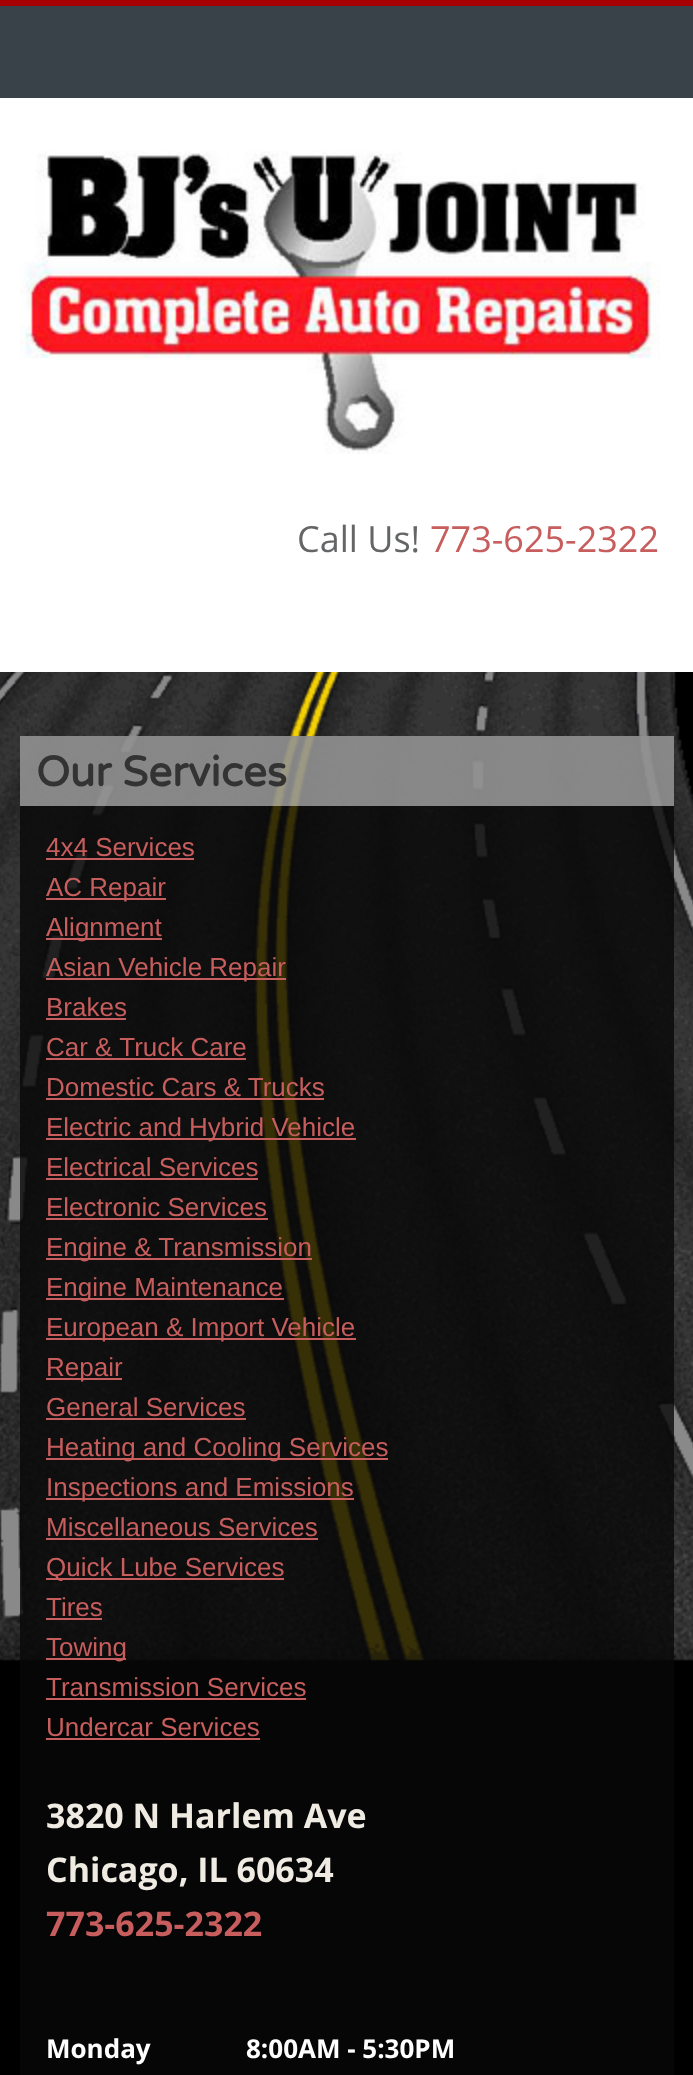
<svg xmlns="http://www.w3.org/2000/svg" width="693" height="2075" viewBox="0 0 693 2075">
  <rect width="100%" height="100%" fill="rgb(0,0,0)"/>
  <image x="0" y="672" width="693" height="991" href="pic1.png"/>
  <rect x="0" y="6" width="693" height="92" fill="rgb(57,66,72)"/>
  <rect x="0" y="0" width="693" height="6" fill="rgb(167,0,0)"/>
  <rect x="0" y="98" width="693" height="574" fill="rgb(255,255,255)"/>
  <image x="20" y="151" width="640" height="303" href="pic2.png"/>
  <text x="297" y="552" font-family="Open Sans" font-size="36" fill="rgb(99,101,102)">Call Us!</text>
  <text x="430" y="552" font-family="Open Sans" font-size="36" fill="rgb(199,93,93)">773-625-2322</text>
  <rect x="20" y="736" width="654" height="1339" fill="rgba(8,8,8,0.8)"/>
  <rect x="20" y="736" width="654" height="70" fill="rgba(255,255,255,0.5)"/>
  <text x="36" y="786" font-family="Varela Round" font-size="42" font-weight="bold" fill="rgb(51,51,51)">Our Services</text>
  <text x="46" y="856" font-family="Liberation Sans" font-size="26" fill="rgb(199,93,93)">4x4 Services</text>
  <rect x="46" y="858" width="148" height="2" fill="rgb(199,93,93)"/>
  <rect x="46" y="898" width="120" height="2" fill="rgb(199,93,93)"/>
  <text x="46" y="896" font-family="Liberation Sans" font-size="26" fill="rgb(199,93,93)">AC Repair</text>
  <rect x="46" y="938" width="116" height="2" fill="rgb(199,93,93)"/>
  <text x="46" y="936" font-family="Liberation Sans" font-size="26" fill="rgb(199,93,93)">Alignment</text>
  <rect x="46" y="978" width="240" height="2" fill="rgb(199,93,93)"/>
  <g font-family="Liberation Sans" font-size="26" fill="rgb(199,93,93)">
    <text>
      <tspan x="46" y="976">Asian Vehicle Repair</tspan>
      <tspan x="46" y="1016">Brakes</tspan>
    </text>
  </g>
  <rect x="46" y="1018" width="80" height="2" fill="rgb(199,93,93)"/>
  <text x="46" y="1056" font-family="Liberation Sans" font-size="26" fill="rgb(199,93,93)">Car &amp; Truck Care</text>
  <rect x="46" y="1058" width="200" height="2" fill="rgb(199,93,93)"/>
  <text x="46" y="1096" font-family="Liberation Sans" font-size="26" fill="rgb(199,93,93)">Domestic Cars &amp; Trucks</text>
  <rect x="46" y="1098" width="278" height="2" fill="rgb(199,93,93)"/>
  <rect x="46" y="1138" width="310" height="2" fill="rgb(199,93,93)"/>
  <g font-family="Liberation Sans" font-size="26" fill="rgb(199,93,93)">
    <text>
      <tspan x="46" y="1136">Electric and Hybrid Vehicle</tspan>
      <tspan x="46" y="1176">Electrical Services</tspan>
    </text>
  </g>
  <rect x="46" y="1178" width="212" height="2" fill="rgb(199,93,93)"/>
  <text x="46" y="1216" font-family="Liberation Sans" font-size="26" fill="rgb(199,93,93)">Electronic Services</text>
  <rect x="46" y="1218" width="222" height="2" fill="rgb(199,93,93)"/>
  <rect x="46" y="1258" width="266" height="2" fill="rgb(199,93,93)"/>
  <text x="46" y="1256" font-family="Liberation Sans" font-size="26" fill="rgb(199,93,93)">Engine &amp; Transmission</text>
  <rect x="46" y="1298" width="238" height="2" fill="rgb(199,93,93)"/>
  <text x="46" y="1296" font-family="Liberation Sans" font-size="26" fill="rgb(199,93,93)">Engine Maintenance</text>
  <rect x="46" y="1338" width="310" height="2" fill="rgb(199,93,93)"/>
  <text x="46" y="1336" font-family="Liberation Sans" font-size="26" fill="rgb(199,93,93)">European &amp; Import Vehicle</text>
  <rect x="46" y="1378" width="76" height="2" fill="rgb(199,93,93)"/>
  <g font-family="Liberation Sans" font-size="26" fill="rgb(199,93,93)">
    <text>
      <tspan x="46" y="1376">Repair</tspan>
      <tspan x="46" y="1416">General Services</tspan>
    </text>
  </g>
  <rect x="46" y="1418" width="200" height="2" fill="rgb(199,93,93)"/>
  <rect x="46" y="1458" width="342" height="2" fill="rgb(199,93,93)"/>
  <text x="46" y="1456" font-family="Liberation Sans" font-size="26" fill="rgb(199,93,93)">Heating and Cooling Services</text>
  <rect x="46" y="1498" width="308" height="2" fill="rgb(199,93,93)"/>
  <g font-family="Liberation Sans" font-size="26" fill="rgb(199,93,93)">
    <text>
      <tspan x="46" y="1496">Inspections and Emissions</tspan>
      <tspan x="46" y="1536">Miscellaneous Services</tspan>
    </text>
  </g>
  <rect x="46" y="1538" width="272" height="2" fill="rgb(199,93,93)"/>
  <rect x="46" y="1578" width="238" height="2" fill="rgb(199,93,93)"/>
  <g font-family="Liberation Sans" font-size="26" fill="rgb(199,93,93)">
    <text>
      <tspan x="46" y="1576">Quick Lube Services</tspan>
      <tspan x="46" y="1616">Tires</tspan>
    </text>
  </g>
  <rect x="46" y="1618" width="56" height="2" fill="rgb(199,93,93)"/>
  <rect x="46" y="1658" width="80" height="2" fill="rgb(199,93,93)"/>
  <g font-family="Liberation Sans" font-size="26" fill="rgb(199,93,93)">
    <text>
      <tspan x="46" y="1656">Towing</tspan>
      <tspan x="46" y="1696">Transmission Services</tspan>
    </text>
  </g>
  <rect x="46" y="1698" width="260" height="2" fill="rgb(199,93,93)"/>
  <text x="46" y="1736" font-family="Liberation Sans" font-size="26" fill="rgb(199,93,93)">Undercar Services</text>
  <rect x="46" y="1738" width="214" height="2" fill="rgb(199,93,93)"/>
  <g font-family="Open Sans" font-size="34" font-weight="bold" fill="rgb(239,235,226)">
    <text>
      <tspan x="46" y="1828">3820 N Harlem Ave</tspan>
      <tspan x="46" y="1882">Chicago, IL 60634</tspan>
    </text>
  </g>
  <text x="46" y="1936" font-family="Open Sans" font-size="34" font-weight="bold" fill="rgb(199,93,93)">773-625-2322</text>
  <g font-family="Open Sans" font-size="26" font-weight="bold" fill="rgb(255,255,255)">
    <text x="46" y="2058">Monday</text>
    <text x="246" y="2058">8:00AM - 5:30PM</text>
  </g>
</svg>
